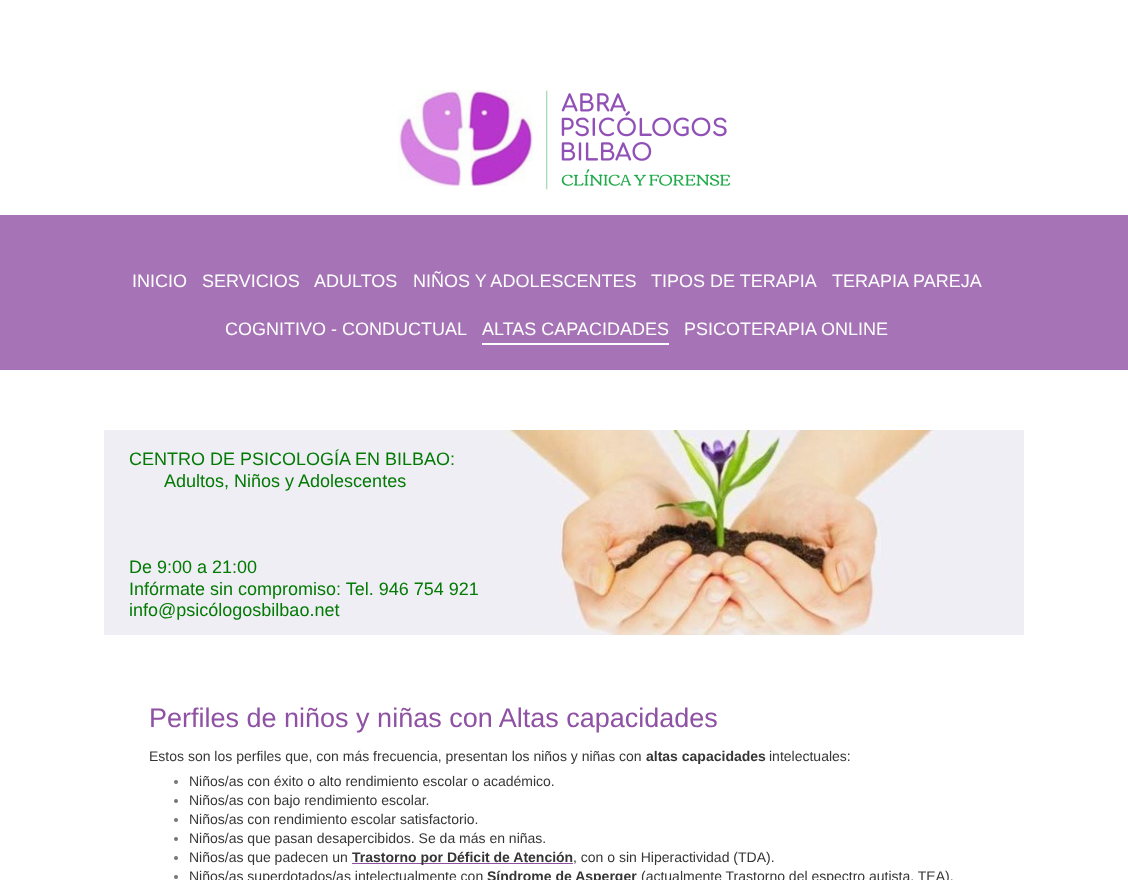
<svg xmlns="http://www.w3.org/2000/svg" width="1128" height="880" viewBox="0 0 1128 880">
  <rect width="100%" height="100%" fill="rgb(255,255,255)"/>
  <image x="398" y="90" width="333" height="100" href="pic1.png"/>
  <rect x="0" y="215" width="1128" height="155" fill="rgb(166,116,182)"/>
  <g font-family="Liberation Sans" font-size="18" fill="rgb(255,255,255)">
    <text x="132" y="287">INICIO</text>
    <text x="202" y="287">SERVICIOS</text>
    <text x="314" y="287">ADULTOS</text>
    <text x="413" y="287">NIÑOS Y ADOLESCENTES</text>
    <text x="651" y="287">TIPOS DE TERAPIA</text>
    <text x="832" y="287">TERAPIA PAREJA</text>
    <text x="225" y="335">COGNITIVO - CONDUCTUAL</text>
  </g>
  <rect x="482" y="343" width="187" height="2" fill="rgb(255,255,255)"/>
  <g font-family="Liberation Sans" font-size="18" fill="rgb(255,255,255)">
    <text x="482" y="335">ALTAS CAPACIDADES</text>
    <text x="684" y="335">PSICOTERAPIA ONLINE</text>
  </g>
  <image x="104" y="430" width="920" height="205" href="pic2.png"/>
  <g font-family="Liberation Sans" font-size="18" fill="rgb(3,122,4)">
    <text x="129" y="465">CENTRO DE PSICOLOGÍA EN BILBAO:</text>
    <text x="164" y="487">Adultos, Niños y Adolescentes</text>
    <text>
      <tspan x="129" y="573">De 9:00 a 21:00</tspan>
      <tspan x="129" y="595">Infórmate sin compromiso: Tel. 946 754 921</tspan>
      <tspan x="129" y="616">info@psicólogosbilbao.net</tspan>
    </text>
  </g>
  <text x="149" y="727" font-family="Liberation Sans" font-size="27" fill="rgb(143,81,163)">Perfiles de niños y niñas con Altas capacidades</text>
  <text x="149" y="761" font-family="Liberation Sans" font-size="14" fill="rgb(53,53,53)">Estos son los perfiles que, con más frecuencia, presentan los niños y niñas con</text>
  <text x="646" y="761" font-family="Liberation Sans" font-size="14" font-weight="bold" fill="rgb(53,53,53)">altas capacidades</text>
  <text x="769" y="761" font-family="Liberation Sans" font-size="14" fill="rgb(53,53,53)">intelectuales:</text>
  <circle cx="176" cy="782" r="2" fill="rgb(117,117,117)"/>
  <text x="189" y="786" font-family="Liberation Sans" font-size="14" fill="rgb(53,53,53)">Niños/as con éxito o alto rendimiento escolar o académico.</text>
  <circle cx="176" cy="801" r="2" fill="rgb(117,117,117)"/>
  <text x="189" y="805" font-family="Liberation Sans" font-size="14" fill="rgb(53,53,53)">Niños/as con bajo rendimiento escolar.</text>
  <circle cx="176" cy="820" r="2" fill="rgb(117,117,117)"/>
  <text x="189" y="824" font-family="Liberation Sans" font-size="14" fill="rgb(53,53,53)">Niños/as con rendimiento escolar satisfactorio.</text>
  <circle cx="176" cy="839" r="2" fill="rgb(117,117,117)"/>
  <text x="189" y="843" font-family="Liberation Sans" font-size="14" fill="rgb(53,53,53)">Niños/as que pasan desapercibidos. Se da más en niñas.</text>
  <circle cx="176" cy="858" r="2" fill="rgb(117,117,117)"/>
  <text x="189" y="862" font-family="Liberation Sans" font-size="14" fill="rgb(53,53,53)">Niños/as que padecen un</text>
  <rect x="352" y="863" width="221" height="1" fill="rgb(143,81,163)"/>
  <text x="352" y="862" font-family="Liberation Sans" font-size="14" font-weight="bold" fill="rgb(53,53,53)">Trastorno por Déficit de Atención</text>
  <text x="573" y="862" font-family="Liberation Sans" font-size="14" fill="rgb(53,53,53)">, con o sin Hiperactividad (TDA).</text>
  <circle cx="176" cy="877" r="2" fill="rgb(117,117,117)"/>
  <text x="189" y="881" font-family="Liberation Sans" font-size="14" fill="rgb(53,53,53)">Niños/as superdotados/as intelectualmente con</text>
  <text x="487" y="881" font-family="Liberation Sans" font-size="14" font-weight="bold" fill="rgb(53,53,53)">Síndrome de Asperger</text>
  <text x="641" y="881" font-family="Liberation Sans" font-size="14" fill="rgb(53,53,53)">(actualmente Trastorno del espectro autista, TEA).</text>
</svg>
